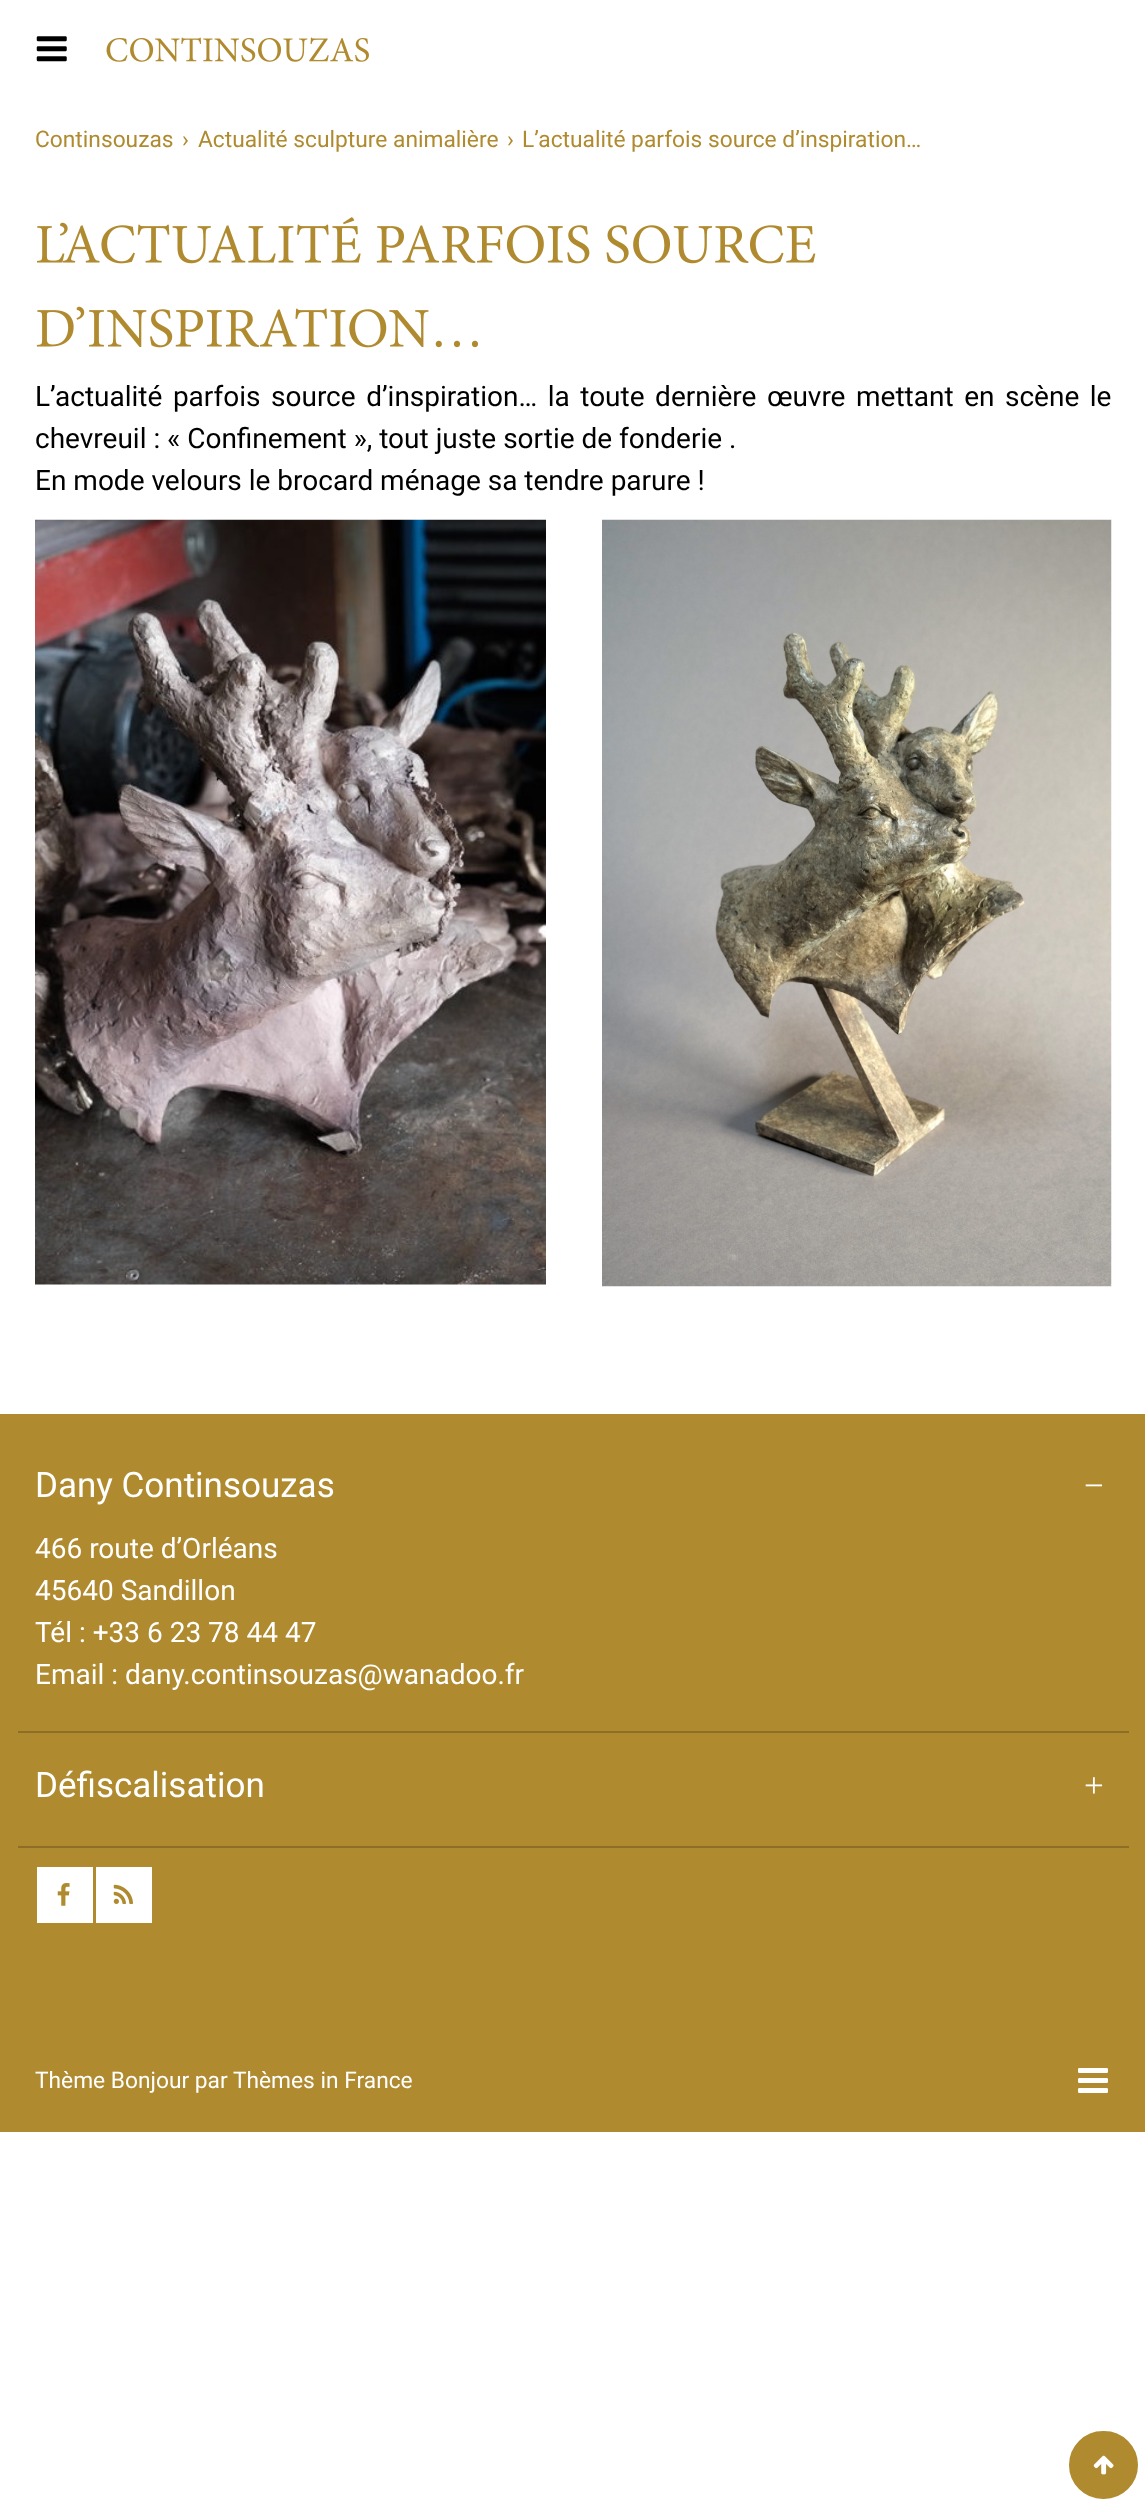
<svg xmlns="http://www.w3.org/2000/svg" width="1145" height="2507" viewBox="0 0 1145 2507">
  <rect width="100%" height="100%" fill="rgb(255,255,255)"/>
  <image x="36" y="36" width="31" height="26" href="pic1.png"/>
  <image x="106" y="37" width="263" height="25" href="pic2.png"/>
  <g font-family="Roboto" font-size="22.75" fill="rgb(176,138,47)">
    <text x="35" y="147">Continsouzas</text>
    <text x="182" y="147">›</text>
    <text x="198" y="147">Actualité sculpture animalière</text>
    <text x="507" y="147">›</text>
    <text x="522" y="147">L’actualité parfois source d’inspiration…</text>
  </g>
  <image x="37" y="217" width="779" height="47" href="pic3.png"/>
  <image x="36" y="306" width="442" height="42" href="pic4.png"/>
  <g font-family="Roboto" font-size="28" fill="rgb(0,0,0)">
    <text>
      <tspan x="35" y="406" word-spacing="3.6">L’actualité parfois source d’inspiration… la toute dernière œuvre mettant en scène le</tspan>
      <tspan x="35" y="448">chevreuil : « Confinement », tout juste sortie de fonderie .</tspan>
      <tspan x="35" y="490">En mode velours le brocard ménage sa tendre parure !</tspan>
    </text>
  </g>
  <image x="35" y="519" width="511" height="766" href="pic5.png"/>
  <image x="602" y="519" width="510" height="768" href="pic6.png"/>
  <rect x="0" y="1414" width="1145" height="718" fill="rgb(176,138,47)"/>
  <text x="35" y="1497" font-family="Roboto" font-size="35" fill="rgb(255,255,255)">Dany Continsouzas</text>
  <text x="1084" y="1497" font-family="Liberation Serif" font-size="35" fill="rgb(255,255,255)">−</text>
  <g font-family="Roboto" font-size="28" fill="rgb(255,255,255)">
    <text>
      <tspan x="35" y="1558">466 route d’Orléans</tspan>
      <tspan x="35" y="1600">45640 Sandillon</tspan>
      <tspan x="35" y="1642">Tél : +33 6 23 78 44 47</tspan>
      <tspan x="35" y="1684">Email : dany.continsouzas@wanadoo.fr</tspan>
    </text>
  </g>
  <rect x="18" y="1731" width="1111" height="2" fill="rgb(141,110,38)"/>
  <text x="35" y="1797" font-family="Roboto" font-size="35" fill="rgb(255,255,255)">Défiscalisation</text>
  <text x="1084" y="1797" font-family="Liberation Serif" font-size="35" fill="rgb(255,255,255)">+</text>
  <rect x="18" y="1846" width="1111" height="2" fill="rgb(141,110,38)"/>
  <rect x="37" y="1867" width="56" height="56" fill="rgb(255,255,255)"/>
  <image x="57" y="1883" width="13" height="23" href="pic7.png"/>
  <rect x="96" y="1867" width="56" height="56" fill="rgb(255,255,255)"/>
  <image x="113" y="1884" width="20" height="20" href="pic8.png"/>
  <text x="35" y="2088" font-family="Roboto" font-size="22.75" fill="rgb(255,255,255)">Thème Bonjour par Thèmes in France</text>
  <image x="1078" y="2068" width="30" height="25" href="pic9.png"/>
  <rect x="1066.5" y="2428.5" width="74" height="73" rx="36.5" fill="rgb(176,138,47)" stroke="rgb(255,255,255)" stroke-width="5"/>
  <image x="1093" y="2455" width="21" height="20" href="pic10.png"/>
</svg>
